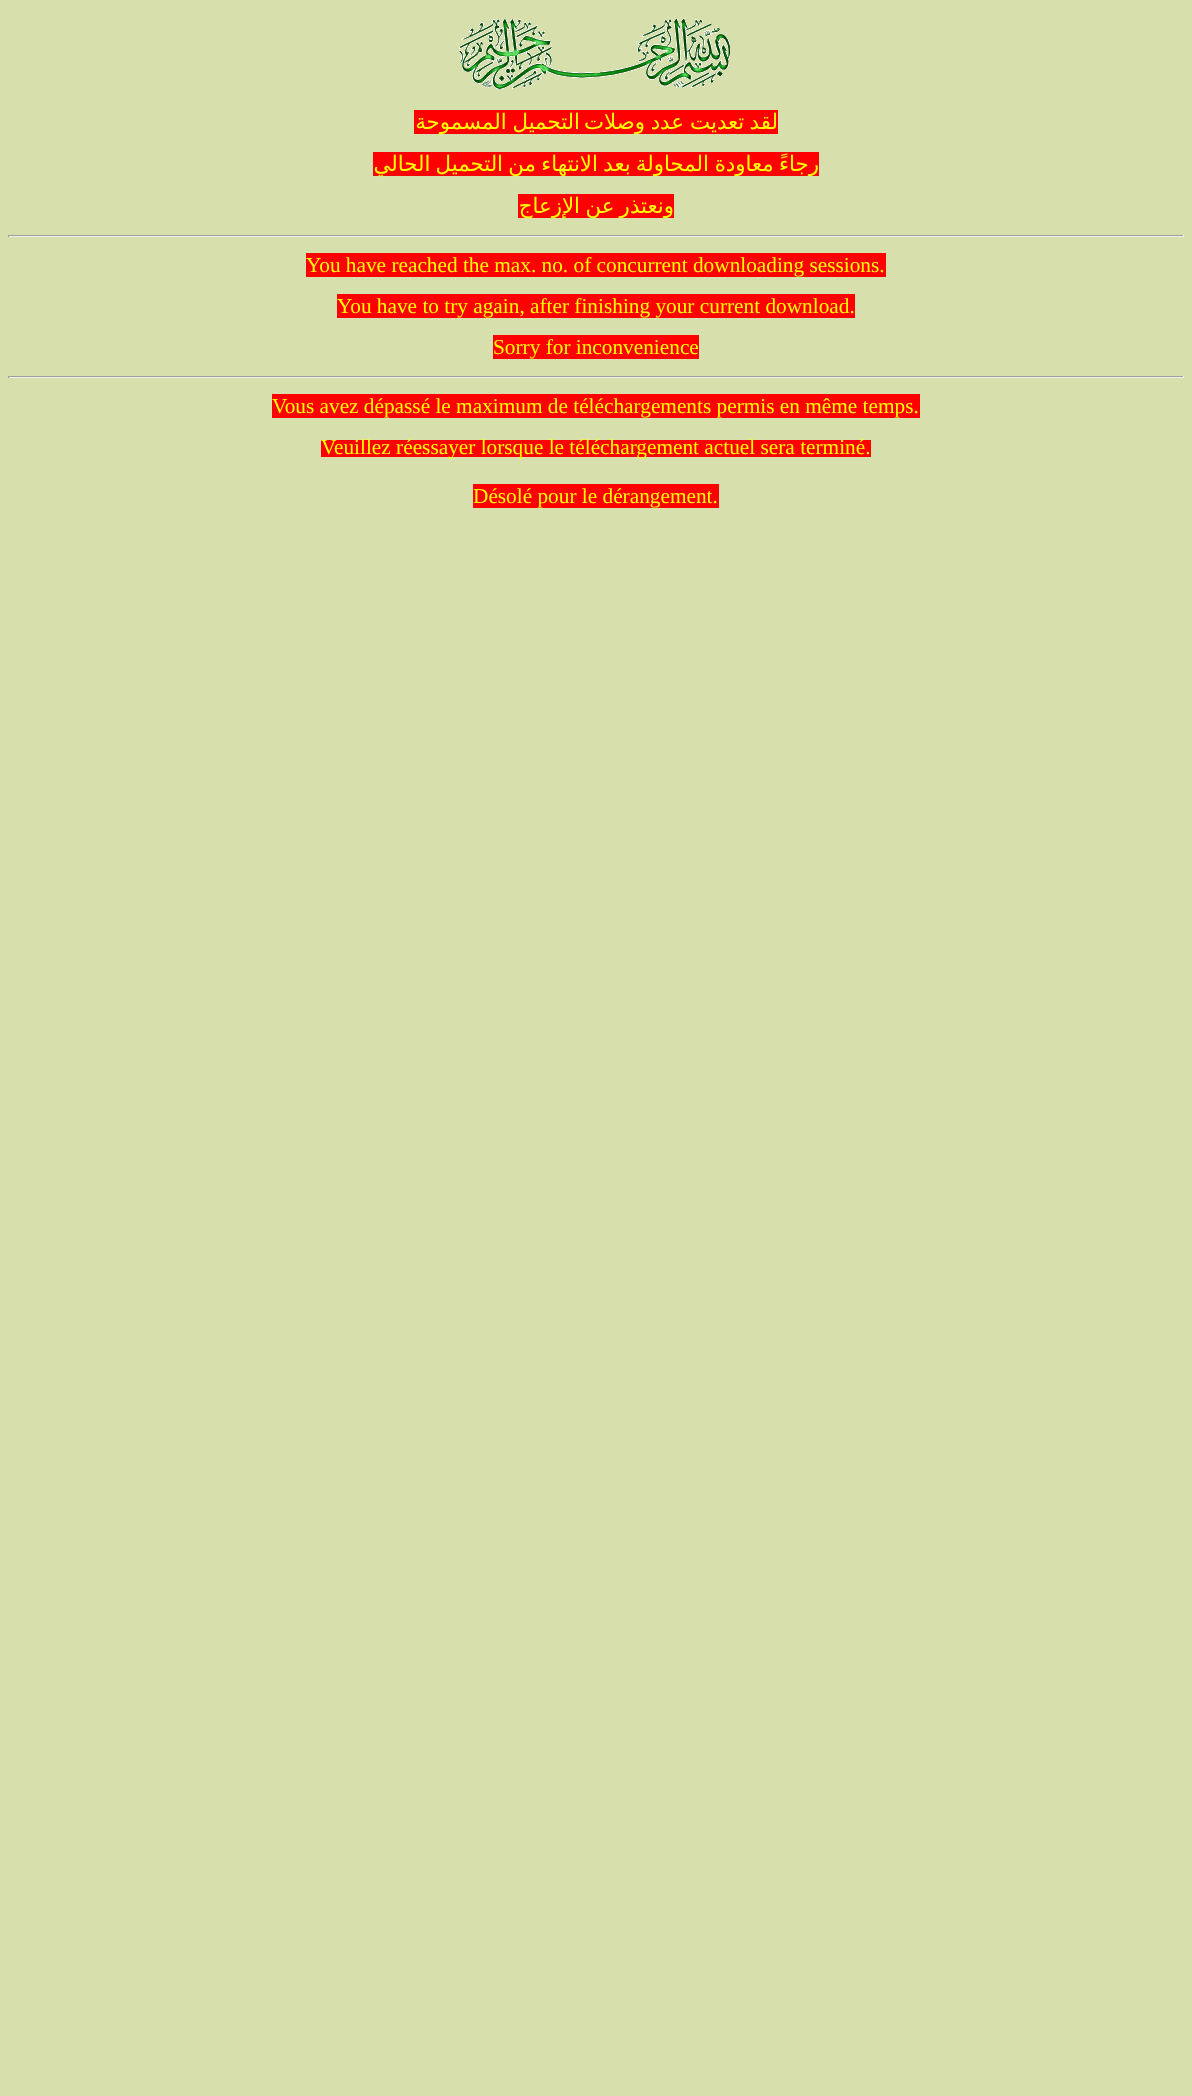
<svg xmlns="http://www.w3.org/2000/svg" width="1192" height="2096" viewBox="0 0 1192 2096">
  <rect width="100%" height="100%" fill="rgb(215,223,172)"/>
  <image x="459" y="18" width="271" height="71" href="pic1.png"/>
  <rect x="414" y="110" width="364" height="24" fill="rgb(255,0,0)"/>
  <g font-family="DejaVu Sans" font-size="21.3" direction="rtl" fill="rgb(255,255,0)">
    <text x="580" y="129" word-spacing="-1">التحميل المسموحة</text>
    <text x="645" y="129">وصلات</text>
    <text x="684" y="129">عدد</text>
    <text x="778" y="129" word-spacing="-1.5">لقد تعديت</text>
  </g>
  <rect x="373" y="152" width="446" height="24" fill="rgb(255,0,0)"/>
  <g font-family="DejaVu Sans" font-size="21.3" direction="rtl" fill="rgb(255,255,0)">
    <text x="709" y="171" word-spacing="-1.5">المحاولة بعد الانتهاء من التحميل الحالي</text>
    <text x="819" y="171" word-spacing="-1.5">رجاءً معاودة</text>
  </g>
  <rect x="518" y="194" width="156" height="24" fill="rgb(255,0,0)"/>
  <g font-family="DejaVu Sans" font-size="21.3" direction="rtl" fill="rgb(255,255,0)">
    <text x="580" y="213">الإزعاج</text>
    <text x="674" y="213" word-spacing="-1.5">ونعتذر عن</text>
  </g>
  <rect x="8" y="235" width="1176" height="1" fill="rgb(159,159,159)"/>
  <rect x="1183" y="235" width="1" height="2" fill="rgb(238,238,238)"/>
  <rect x="8" y="236" width="1176" height="1" fill="rgb(238,238,238)"/>
  <rect x="8" y="235" width="1" height="2" fill="rgb(159,159,159)"/>
  <rect x="306" y="253" width="580" height="24" fill="rgb(255,0,0)"/>
  <text x="306" y="272" font-family="Liberation Serif" font-size="21.3" fill="rgb(255,255,0)">You have reached the max. no. of concurrent downloading sessions.</text>
  <rect x="337" y="294" width="518" height="24" fill="rgb(255,0,0)"/>
  <text x="337" y="313" font-family="Liberation Serif" font-size="21.3" fill="rgb(255,255,0)">You have to try again, after finishing your current download.</text>
  <rect x="493" y="335" width="206" height="24" fill="rgb(255,0,0)"/>
  <text x="493" y="354" font-family="Liberation Serif" font-size="21.3" fill="rgb(255,255,0)">Sorry for inconvenience</text>
  <rect x="8" y="376" width="1176" height="1" fill="rgb(159,159,159)"/>
  <rect x="1183" y="376" width="1" height="2" fill="rgb(238,238,238)"/>
  <rect x="8" y="377" width="1176" height="1" fill="rgb(238,238,238)"/>
  <rect x="8" y="376" width="1" height="2" fill="rgb(159,159,159)"/>
  <rect x="272" y="394" width="648" height="24" fill="rgb(255,0,0)"/>
  <text x="272" y="413" font-family="Liberation Serif" font-size="21.3" fill="rgb(255,255,0)">Vous avez dépassé le maximum de téléchargements permis en même temps.</text>
  <rect x="321" y="440" width="550" height="17" fill="rgb(255,0,0)"/>
  <text x="321" y="454" font-family="Liberation Serif" font-size="21.3" fill="rgb(255,255,0)">Veuillez réessayer lorsque le téléchargement actuel sera terminé.</text>
  <rect x="473" y="484" width="246" height="24" fill="rgb(255,0,0)"/>
  <text x="473" y="503" font-family="Liberation Serif" font-size="21.3" fill="rgb(255,255,0)">Désolé pour le dérangement.</text>
</svg>
